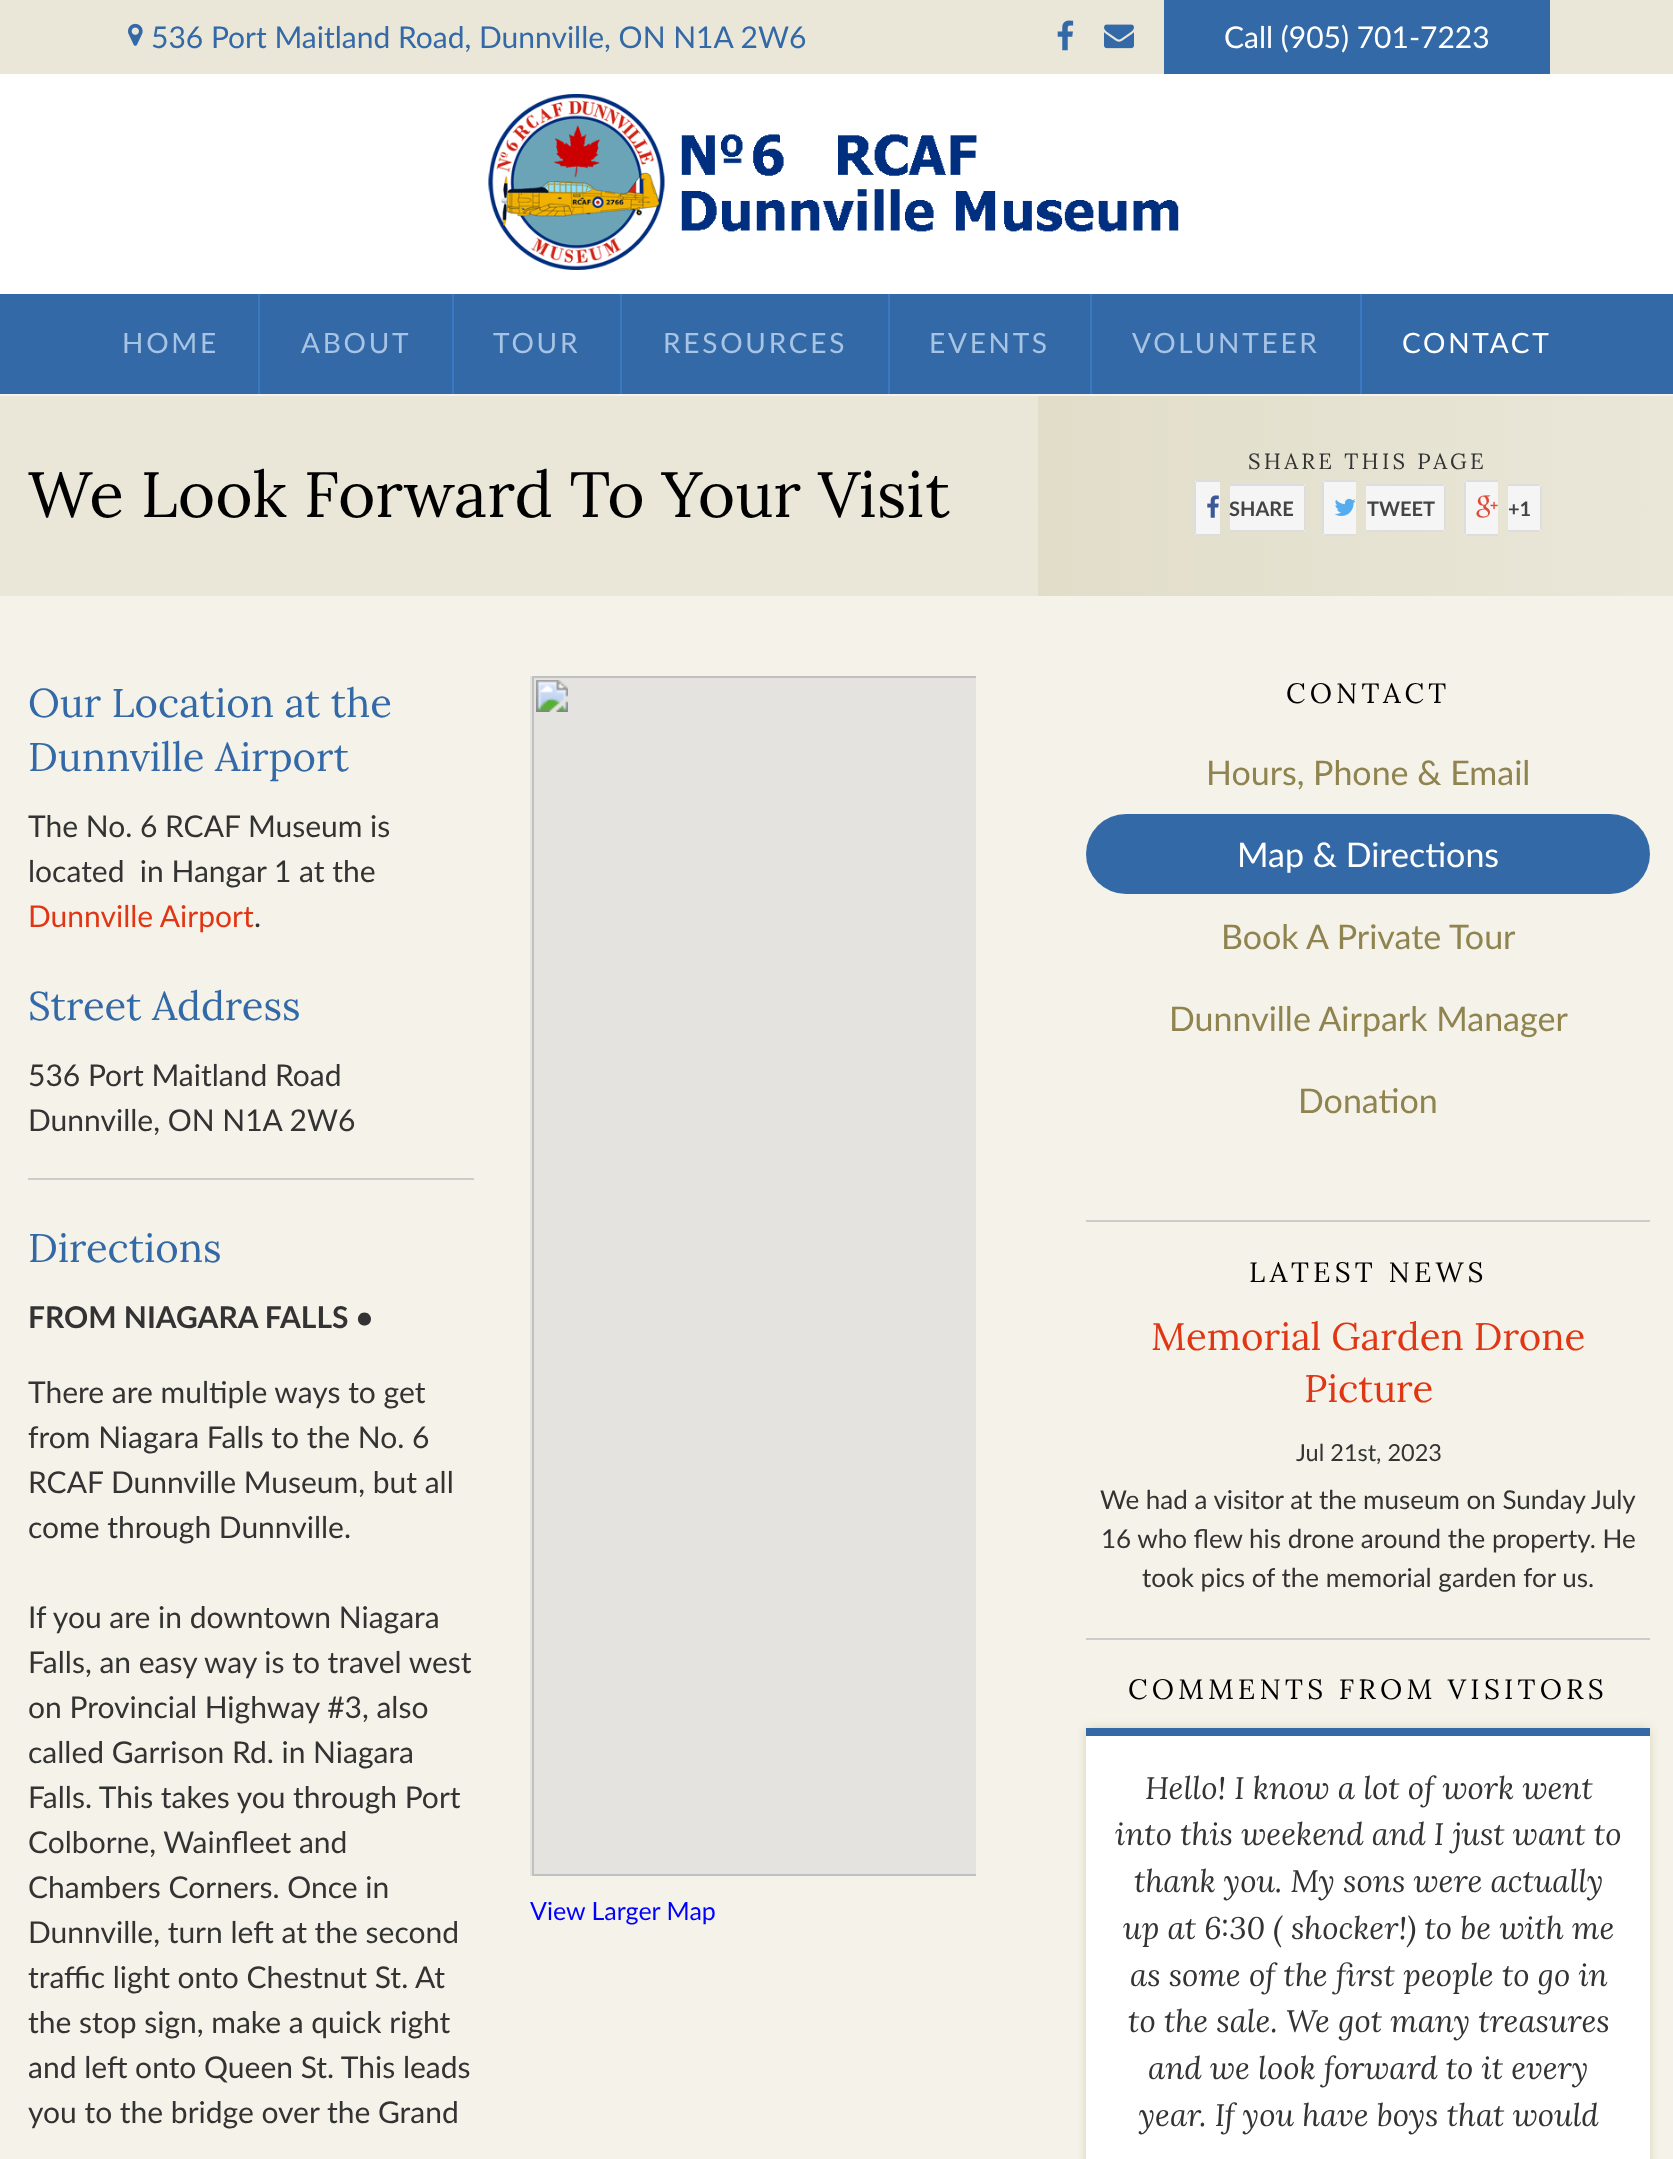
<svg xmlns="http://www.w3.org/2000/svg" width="1673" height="2159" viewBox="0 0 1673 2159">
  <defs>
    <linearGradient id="g1" gradientUnits="userSpaceOnUse" x1="1038" y1="496" x2="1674" y2="496"><stop offset="0" stop-color="rgb(225,221,201)"/><stop offset="1" stop-color="rgb(234,231,217)"/></linearGradient>
  </defs>
  <rect width="100%" height="100%" fill="rgb(244,242,233)"/>
  <rect x="0" y="74" width="1673" height="220" fill="rgb(255,255,255)"/>
  <rect x="0" y="0" width="1673" height="74" fill="rgb(234,231,217)"/>
  <image x="128" y="23" width="15" height="23" href="pic1.png"/>
  <text x="151" y="48" font-family="Lato" font-size="30" fill="rgb(51,105,167)">536 Port Maitland Road, Dunnville, ON N1A 2W6</text>
  <image x="1057" y="20" width="17" height="31" href="pic2.png"/>
  <image x="1104" y="24" width="30" height="25" href="pic3.png"/>
  <rect x="1164" y="0" width="386" height="74" fill="rgb(51,105,167)"/>
  <text x="1224" y="48" font-family="Lato" font-size="30" fill="rgb(255,255,255)">Call (905) 701-7223</text>
  <image x="488" y="94" width="691" height="176" href="pic4.png"/>
  <rect x="0" y="294" width="1673" height="100" fill="rgb(51,105,167)"/>
  <text x="122" y="353" font-family="Lato" font-size="28" letter-spacing="2.75" fill="rgb(168,196,228)">HOME</text>
  <rect x="258" y="294" width="2" height="100" fill="rgb(59,122,194)"/>
  <text x="301" y="353" font-family="Lato" font-size="28" letter-spacing="2.75" fill="rgb(168,196,228)">ABOUT</text>
  <rect x="452" y="294" width="2" height="100" fill="rgb(59,122,194)"/>
  <text x="493" y="353" font-family="Lato" font-size="28" letter-spacing="2.75" fill="rgb(168,196,228)">TOUR</text>
  <rect x="620" y="294" width="2" height="100" fill="rgb(59,122,194)"/>
  <text x="663" y="353" font-family="Lato" font-size="28" letter-spacing="2.75" fill="rgb(168,196,228)">RESOURCES</text>
  <rect x="888" y="294" width="2" height="100" fill="rgb(59,122,194)"/>
  <text x="929" y="353" font-family="Lato" font-size="28" letter-spacing="2.75" fill="rgb(168,196,228)">EVENTS</text>
  <rect x="1090" y="294" width="2" height="100" fill="rgb(59,122,194)"/>
  <text x="1132" y="353" font-family="Lato" font-size="28" letter-spacing="2.75" fill="rgb(168,196,228)">VOLUNTEER</text>
  <rect x="1360" y="294" width="2" height="100" fill="rgb(59,122,194)"/>
  <text x="1402" y="353" font-family="Lato" font-size="28" letter-spacing="2.75" fill="rgb(255,255,255)">CONTACT</text>
  <rect x="0" y="396" width="1038" height="200" fill="rgb(234,231,217)"/>
  <text x="28" y="517" font-family="Lora" font-size="64" fill="rgb(0,0,0)">We Look Forward To Your Visit</text>
  <rect x="1038" y="396" width="635" height="200" fill="url(#g1)"/>
  <text x="1248" y="469" font-family="Lora" font-size="22" letter-spacing="3.25" fill="rgb(51,51,51)">SHARE THIS PAGE</text>
  <path d="M1198 480H1220V536H1198C1196 536 1194 534 1194 532V484C1194 482 1196 480 1198 480Z" fill="rgb(245,245,245)"/>
  <rect x="1196" y="480" width="24" height="2" fill="rgb(221,221,221)"/>
  <rect x="1196" y="534" width="24" height="2" fill="rgb(221,221,221)"/>
  <rect x="1194" y="482" width="2" height="52" fill="rgb(221,221,221)"/>
  <path d="M1230 484H1302C1304 484 1306 486 1306 488V528C1306 530 1304 532 1302 532H1230Z" fill="rgb(245,245,245)"/>
  <rect x="1230" y="484" width="74" height="2" fill="rgb(221,221,221)"/>
  <rect x="1304" y="486" width="2" height="44" fill="rgb(221,221,221)"/>
  <rect x="1230" y="530" width="74" height="2" fill="rgb(221,221,221)"/>
  <image x="1207" y="495" width="12" height="23" href="pic5.png"/>
  <text x="1229" y="516" font-family="Lato" font-size="20" font-weight="bold" fill="rgb(68,68,68)">SHARE</text>
  <path d="M1326 480H1356V536H1326C1324 536 1322 534 1322 532V484C1322 482 1324 480 1326 480Z" fill="rgb(245,245,245)"/>
  <rect x="1324" y="480" width="32" height="2" fill="rgb(221,221,221)"/>
  <rect x="1324" y="534" width="32" height="2" fill="rgb(221,221,221)"/>
  <rect x="1322" y="482" width="2" height="52" fill="rgb(221,221,221)"/>
  <path d="M1366 484H1442C1444 484 1446 486 1446 488V528C1446 530 1444 532 1442 532H1366Z" fill="rgb(245,245,245)"/>
  <rect x="1366" y="484" width="78" height="2" fill="rgb(221,221,221)"/>
  <rect x="1444" y="486" width="2" height="44" fill="rgb(221,221,221)"/>
  <rect x="1366" y="530" width="78" height="2" fill="rgb(221,221,221)"/>
  <image x="1334" y="498" width="22" height="18" href="pic6.png"/>
  <text x="1367" y="516" font-family="Lato" font-size="20" font-weight="bold" fill="rgb(68,68,68)">TWEET</text>
  <path d="M1468 480H1498V536H1468C1466 536 1464 534 1464 532V484C1464 482 1466 480 1468 480Z" fill="rgb(245,245,245)"/>
  <rect x="1466" y="480" width="32" height="2" fill="rgb(221,221,221)"/>
  <rect x="1466" y="534" width="32" height="2" fill="rgb(221,221,221)"/>
  <rect x="1464" y="482" width="2" height="52" fill="rgb(221,221,221)"/>
  <path d="M1508 484H1538C1540 484 1542 486 1542 488V528C1542 530 1540 532 1538 532H1508Z" fill="rgb(245,245,245)"/>
  <rect x="1508" y="484" width="32" height="2" fill="rgb(221,221,221)"/>
  <rect x="1540" y="486" width="2" height="44" fill="rgb(221,221,221)"/>
  <rect x="1508" y="530" width="32" height="2" fill="rgb(221,221,221)"/>
  <image x="1476" y="495" width="22" height="23" href="pic7.png"/>
  <text x="1508" y="516" font-family="Lato" font-size="20" font-weight="bold" fill="rgb(68,68,68)">+1</text>
  <g font-family="Lora" font-size="40" fill="rgb(51,105,167)">
    <text>
      <tspan x="28" y="717">Our Location at the</tspan>
      <tspan x="28" y="771">Dunnville Airport</tspan>
    </text>
  </g>
  <g font-family="Lato" font-size="30" fill="rgb(51,51,51)">
    <text xml:space="preserve"><tspan x="28" y="837">The No. 6 RCAF Museum is</tspan><tspan x="28" y="882">located  in Hangar 1 at the</tspan></text>
  </g>
  <text x="28" y="927" font-family="Lato" font-size="30" fill="rgb(225,54,19)">Dunnville Airport</text>
  <text x="254" y="927" font-family="Lato" font-size="30" fill="rgb(51,51,51)">.</text>
  <text x="28" y="1020" font-family="Lora" font-size="40" fill="rgb(51,105,167)">Street Address</text>
  <g font-family="Lato" font-size="30" fill="rgb(51,51,51)">
    <text>
      <tspan x="28" y="1086">536 Port Maitland Road</tspan>
      <tspan x="28" y="1131">Dunnville, ON N1A 2W6</tspan>
    </text>
  </g>
  <rect x="28" y="1178" width="446" height="2" fill="rgb(204,204,204)"/>
  <text x="28" y="1262" font-family="Lora" font-size="40" fill="rgb(51,105,167)">Directions</text>
  <text x="28" y="1328" font-family="Lato" font-size="30" font-weight="bold" fill="rgb(51,51,51)">FROM NIAGARA FALLS •</text>
  <g font-family="Lato" font-size="30" fill="rgb(51,51,51)">
    <text>
      <tspan x="28" y="1403">There are multiple ways to get</tspan>
      <tspan x="28" y="1448">from Niagara Falls to the No. 6</tspan>
      <tspan x="28" y="1493">RCAF Dunnville Museum, but all</tspan>
      <tspan x="28" y="1538">come through Dunnville.</tspan>
    </text>
    <text>
      <tspan x="28" y="1628">If you are in downtown Niagara</tspan>
      <tspan x="28" y="1673">Falls, an easy way is to travel west</tspan>
      <tspan x="28" y="1718">on Provincial Highway #3, also</tspan>
      <tspan x="28" y="1763">called Garrison Rd. in Niagara</tspan>
      <tspan x="28" y="1808">Falls. This takes you through Port</tspan>
      <tspan x="28" y="1853">Colborne, Wainfleet and</tspan>
      <tspan x="28" y="1898">Chambers Corners. Once in</tspan>
      <tspan x="28" y="1943">Dunnville, turn left at the second</tspan>
      <tspan x="28" y="1988">traffic light onto Chestnut St. At</tspan>
      <tspan x="28" y="2033">the stop sign, make a quick right</tspan>
      <tspan x="28" y="2078">and left onto Queen St. This leads</tspan>
      <tspan x="28" y="2123">you to the bridge over the Grand</tspan>
    </text>
  </g>
  <image x="530" y="676" width="446" height="1200" href="pic8.png"/>
  <text x="530" y="1920" font-family="Lato" font-size="25" fill="rgb(0,0,255)">View Larger Map</text>
  <text x="1286" y="703" font-family="Lora" font-size="28" letter-spacing="4.2" fill="rgb(0,0,0)">CONTACT</text>
  <text x="1206" y="785" font-family="Lato" font-size="34" fill="rgb(143,131,79)">Hours, Phone &amp; Email</text>
  <rect x="1086" y="814" width="564" height="80" rx="40" fill="rgb(51,105,167)"/>
  <text x="1237" y="867" font-family="Lato" font-size="34" fill="rgb(255,255,255)">Map &amp; Directions</text>
  <g font-family="Lato" font-size="34" fill="rgb(143,131,79)">
    <text x="1221" y="949">Book A Private Tour</text>
    <text x="1169" y="1031">Dunnville Airpark Manager</text>
    <text x="1298" y="1113">Donation</text>
  </g>
  <rect x="1086" y="1220" width="564" height="2" fill="rgb(204,204,204)"/>
  <text x="1249" y="1282" font-family="Lora" font-size="28" letter-spacing="4.2" fill="rgb(0,0,0)">LATEST NEWS</text>
  <g font-family="Lora" font-size="38.4" fill="rgb(225,54,19)">
    <text x="1151" y="1350">Memorial Garden Drone</text>
    <text x="1304" y="1402">Picture</text>
  </g>
  <text x="1296" y="1461" font-family="Lato" font-size="23.5" fill="rgb(51,51,51)">Jul 21st, 2023</text>
  <g font-family="Lato" font-size="26" fill="rgb(51,51,51)">
    <text x="1100" y="1509">We had a visitor at the museum on Sunday July</text>
    <text x="1101" y="1548">16 who flew his drone around the property. He</text>
    <text x="1142" y="1587">took pics of the memorial garden for us.</text>
  </g>
  <rect x="1086" y="1638" width="564" height="2" fill="rgb(204,204,204)"/>
  <text x="1128" y="1699" font-family="Lora" font-size="28" letter-spacing="4.2" fill="rgb(0,0,0)">COMMENTS FROM VISITORS</text>
  <rect x="1086" y="1728" width="564" height="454" rx="8" fill="rgb(216,210,184)" filter="blur(5px)"/>
  <rect x="1086" y="1736" width="564" height="423" fill="rgb(255,255,255)"/>
  <rect x="1086" y="1728" width="564" height="8" fill="rgb(51,105,167)"/>
  <g font-family="Lora" font-size="31.25" font-style="italic" fill="rgb(51,51,51)">
    <text x="1145" y="1799">Hello! I know a lot of work went</text>
    <text x="1115" y="1845">into this weekend and I just want to</text>
    <text x="1134" y="1892">thank you. My sons were actually</text>
    <text x="1123" y="1939">up at 6:30 ( shocker!) to be with me</text>
    <text x="1130" y="1986">as some of the first people to go in</text>
    <text x="1128" y="2032">to the sale. We got many treasures</text>
    <text x="1148" y="2079">and we look forward to it every</text>
    <text x="1139" y="2126">year. If you have boys that would</text>
  </g>
</svg>
